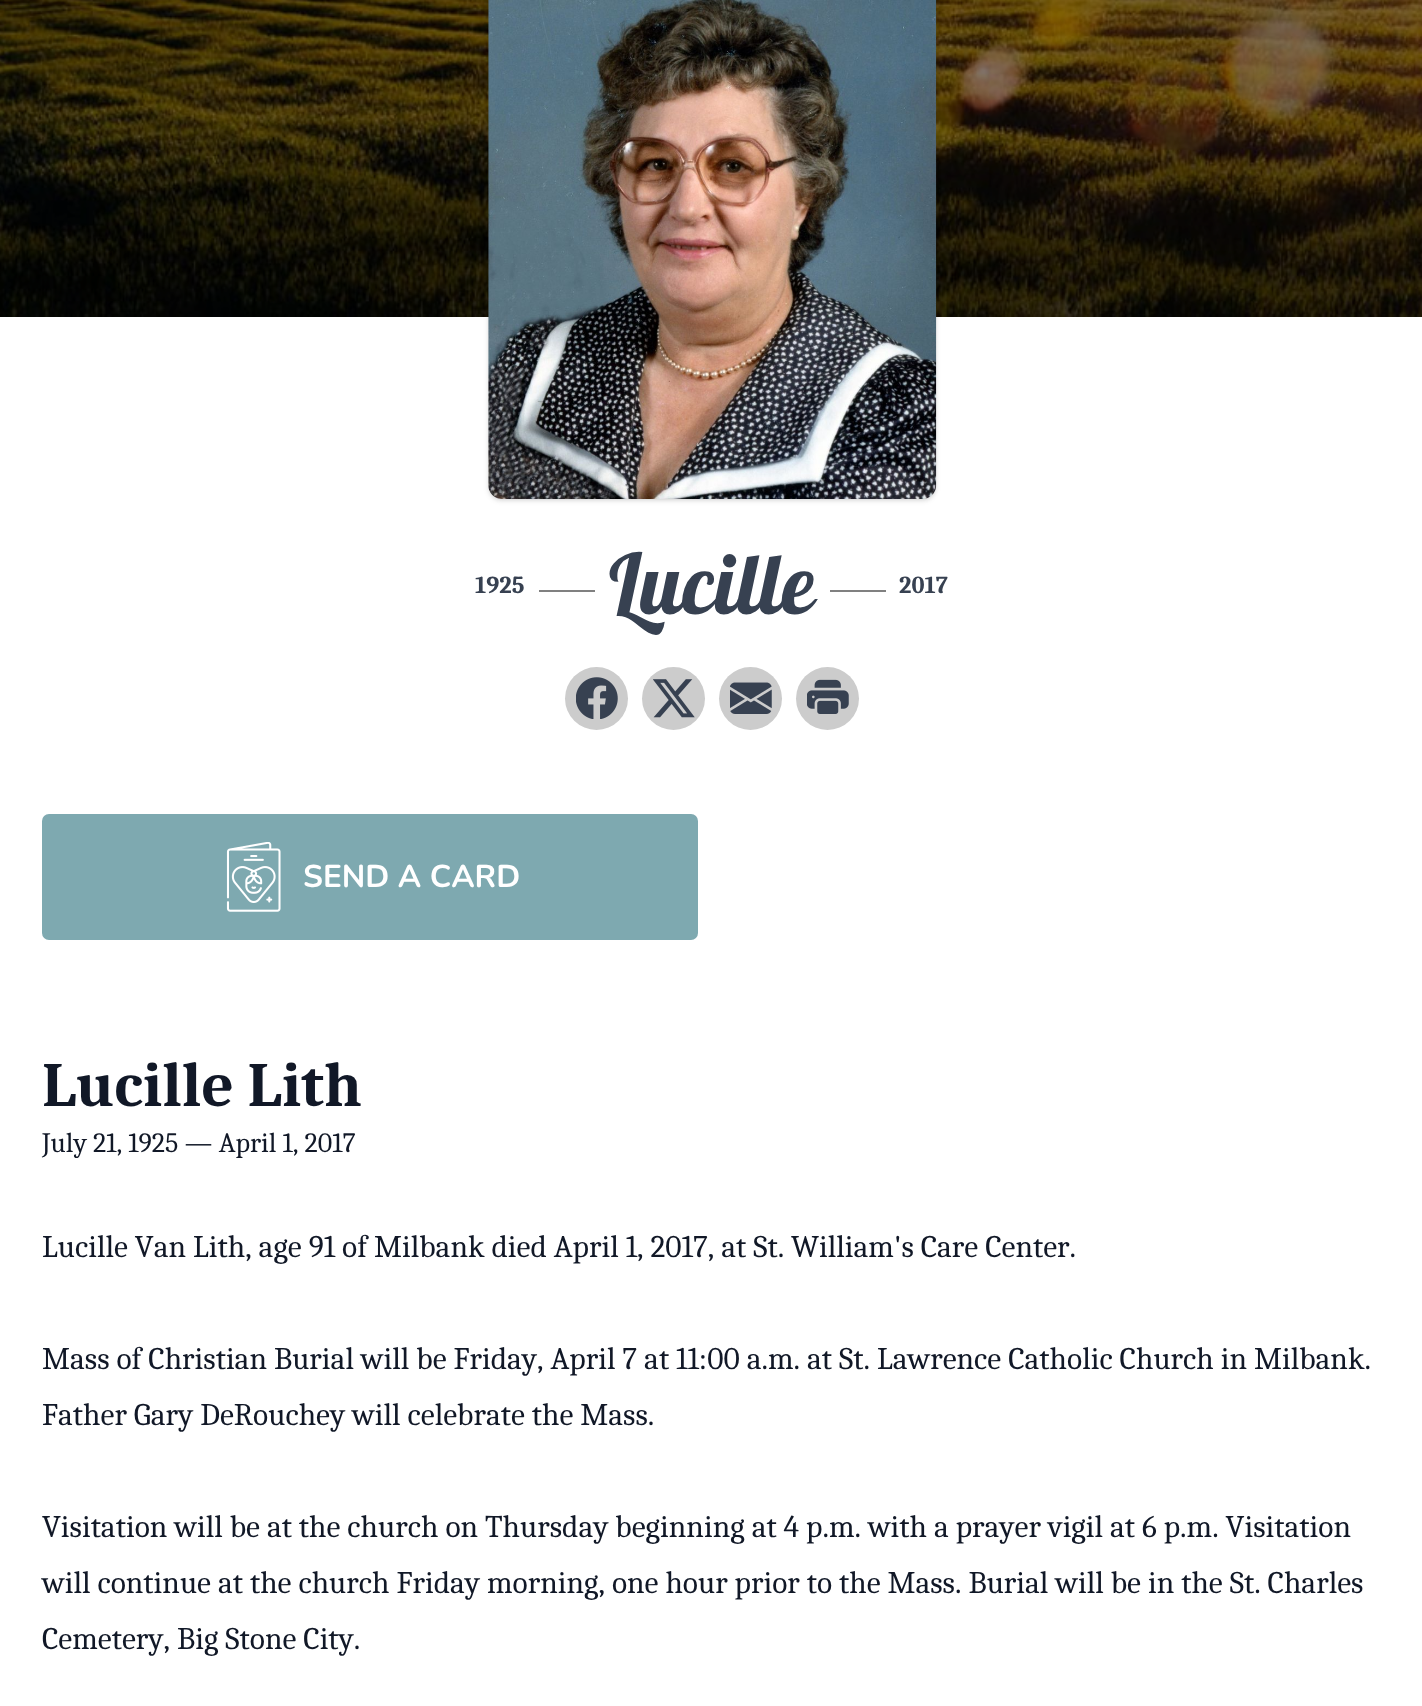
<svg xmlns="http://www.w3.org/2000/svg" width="1422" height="1706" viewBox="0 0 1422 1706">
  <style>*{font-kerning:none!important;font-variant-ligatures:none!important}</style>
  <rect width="100%" height="100%" fill="rgb(255,255,255)"/>
  <image x="0" y="0" width="1422" height="317" href="pic1.png"/>
  <rect x="490" y="-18" width="445" height="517" rx="12" fill="rgba(0,0,0,0.1)" filter="blur(2px)"/>
  <rect x="488" y="-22" width="448" height="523" rx="14" fill="rgba(0,0,0,0.1)" filter="blur(2.5px)"/>
  <image x="488" y="0" width="449" height="499" href="pic2.png"/>
  <text x="475" y="593" font-family="Caladea" font-size="24.5" font-weight="bold" fill="rgb(55,65,81)">1925</text>
  <rect x="539" y="590" width="56" height="2" fill="rgb(128,128,128)"/>
  <text x="609" y="614" font-family="Lobster" font-size="84" fill="rgb(55,65,81)">Lucille</text>
  <rect x="830" y="590" width="56" height="2" fill="rgb(128,128,128)"/>
  <text x="899" y="593" font-family="Caladea" font-size="24.5" font-weight="bold" fill="rgb(55,65,81)">2017</text>
  <circle cx="596.5" cy="698.5" r="31.5" fill="rgb(204,204,204)"/>
  <image x="576" y="677" width="42" height="42" href="pic3.png"/>
  <circle cx="673.5" cy="698.5" r="31.5" fill="rgb(204,204,204)"/>
  <image x="653" y="679" width="42" height="39" href="pic4.png"/>
  <circle cx="750.5" cy="698.5" r="31.5" fill="rgb(204,204,204)"/>
  <image x="730" y="682" width="42" height="32" href="pic5.png"/>
  <circle cx="827.5" cy="698.5" r="31.5" fill="rgb(204,204,204)"/>
  <image x="807" y="679" width="42" height="35" href="pic6.png"/>
  <rect x="42" y="814" width="656" height="126" rx="7" fill="rgb(126,169,176)"/>
  <image x="226" y="842" width="55" height="70" href="pic7.png"/>
  <text x="303" y="887" font-family="Nunito" font-size="31.5" font-weight="bold" fill="rgb(255,255,255)">SEND A CARD</text>
  <text x="42" y="1106" font-family="Caladea" font-size="63" font-weight="bold" fill="rgb(17,24,39)">Lucille Lith</text>
  <text x="42" y="1152" font-family="Caladea" font-size="28" fill="rgb(17,24,39)">July 21, 1925 — April 1, 2017</text>
  <g font-family="Caladea" font-size="31.5" fill="rgb(17,24,39)">
    <text x="42" y="1257">Lucille Van Lith, age 91 of Milbank died April 1, 2017, at St.</text>
    <text x="791" y="1257">William's Care Center.</text>
    <text x="42" y="1369">Mass of Christian Burial will be Friday, April 7 at 11:00 a.m.</text>
    <text x="807" y="1369">at St. Lawrence Catholic Church in Milbank.</text>
    <text x="42" y="1425">Father Gary DeRouchey will celebrate the Mass.</text>
    <text>
      <tspan x="42" y="1537">Visitation will be at the church on Thursday beginning at 4 p.m. with a prayer vigil at 6 p.m. Visitation</tspan>
      <tspan x="42" y="1593">will continue at the church Friday morning, one hour prior to the Mass. Burial will be in the St. Charles</tspan>
      <tspan x="42" y="1649">Cemetery, Big Stone City.</tspan>
    </text>
  </g>
</svg>
